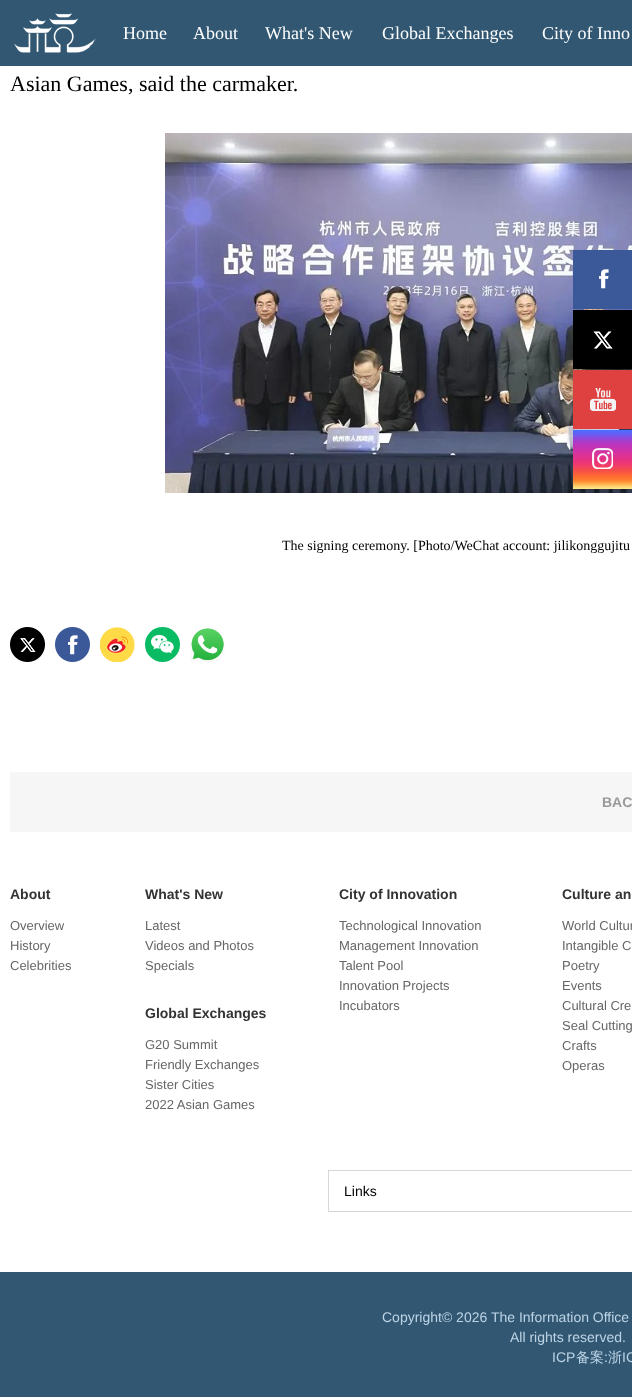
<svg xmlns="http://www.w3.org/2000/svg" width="632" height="1397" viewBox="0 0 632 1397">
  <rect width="100%" height="100%" fill="rgb(255,255,255)"/>
  <rect x="0" y="0" width="632" height="66" fill="rgb(50,87,114)"/>
  <image x="14" y="13" width="82" height="40" href="pic1.png"/>
  <g font-family="Liberation Serif" font-size="18" fill="rgb(255,255,255)">
    <text x="123" y="39">Home</text>
    <text x="193" y="39">About</text>
    <text x="265" y="39">What's New</text>
    <text x="382" y="39">Global Exchanges</text>
    <text x="542" y="39">City of Inno</text>
  </g>
  <text x="10" y="91" font-family="Liberation Serif" font-size="22" fill="rgb(0,0,0)">Asian Games, said the carmaker.</text>
  <image x="165" y="133" width="467" height="360" href="pic2.png"/>
  <text x="282" y="550" font-family="Liberation Serif" font-size="14" fill="rgb(0,0,0)">The signing ceremony. [Photo/WeChat account: jilikonggujitu</text>
  <image x="10" y="627" width="35" height="35" href="pic3.png"/>
  <image x="55" y="627" width="35" height="35" href="pic4.png"/>
  <image x="100" y="627" width="35" height="35" href="pic5.png"/>
  <circle cx="162.5" cy="644.5" r="17.5" fill="rgb(9,188,100)"/>
  <image x="151" y="634" width="23" height="20" href="pic6.png"/>
  <image x="190" y="628" width="35" height="34" href="pic7.png"/>
  <image x="573" y="250" width="59" height="59" href="pic8.png"/>
  <image x="573" y="310" width="59" height="59" href="pic9.png"/>
  <image x="573" y="370" width="59" height="59" href="pic10.png"/>
  <image x="573" y="430" width="59" height="59" href="pic11.png"/>
  <rect x="10" y="772" width="622" height="60" fill="rgb(246,246,246)"/>
  <text x="602" y="807" font-family="Liberation Sans" font-size="14" font-weight="bold" fill="rgb(153,153,153)">BAC</text>
  <text x="10" y="899" font-family="Liberation Sans" font-size="14" font-weight="bold" fill="rgb(51,51,51)">About</text>
  <g font-family="Liberation Sans" font-size="13" fill="rgb(102,102,102)">
    <text>
      <tspan x="10" y="930">Overview</tspan>
      <tspan x="10" y="950">History</tspan>
      <tspan x="10" y="970">Celebrities</tspan>
    </text>
  </g>
  <text x="145" y="899" font-family="Liberation Sans" font-size="14" font-weight="bold" fill="rgb(51,51,51)">What's New</text>
  <g font-family="Liberation Sans" font-size="13" fill="rgb(102,102,102)">
    <text>
      <tspan x="145" y="930">Latest</tspan>
      <tspan x="145" y="950">Videos and Photos</tspan>
      <tspan x="145" y="970">Specials</tspan>
    </text>
  </g>
  <text x="145" y="1018" font-family="Liberation Sans" font-size="14" font-weight="bold" fill="rgb(51,51,51)">Global Exchanges</text>
  <g font-family="Liberation Sans" font-size="13" fill="rgb(102,102,102)">
    <text>
      <tspan x="145" y="1049">G20 Summit</tspan>
      <tspan x="145" y="1069">Friendly Exchanges</tspan>
      <tspan x="145" y="1089">Sister Cities</tspan>
      <tspan x="145" y="1109">2022 Asian Games</tspan>
    </text>
  </g>
  <text x="339" y="899" font-family="Liberation Sans" font-size="14" font-weight="bold" fill="rgb(51,51,51)">City of Innovation</text>
  <g font-family="Liberation Sans" font-size="13" fill="rgb(102,102,102)">
    <text>
      <tspan x="339" y="930">Technological Innovation</tspan>
      <tspan x="339" y="950">Management Innovation</tspan>
      <tspan x="339" y="970">Talent Pool</tspan>
      <tspan x="339" y="990">Innovation Projects</tspan>
      <tspan x="339" y="1010">Incubators</tspan>
    </text>
  </g>
  <text x="562" y="899" font-family="Liberation Sans" font-size="14" font-weight="bold" fill="rgb(51,51,51)">Culture an</text>
  <g font-family="Liberation Sans" font-size="13" fill="rgb(102,102,102)">
    <text>
      <tspan x="562" y="930">World Cultur</tspan>
      <tspan x="562" y="950">Intangible C</tspan>
      <tspan x="562" y="970">Poetry</tspan>
      <tspan x="562" y="990">Events</tspan>
      <tspan x="562" y="1010">Cultural Cre</tspan>
      <tspan x="562" y="1030">Seal Cutting</tspan>
      <tspan x="562" y="1050">Crafts</tspan>
      <tspan x="562" y="1070">Operas</tspan>
    </text>
  </g>
  <rect x="328.5" y="1170.5" width="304" height="41" fill="none" stroke="rgb(214,214,214)"/>
  <text x="344" y="1196" font-family="Liberation Sans" font-size="14" fill="rgb(0,0,0)">Links</text>
  <rect x="0" y="1272" width="632" height="125" fill="rgb(50,87,114)"/>
  <g font-family="Liberation Sans" font-size="14" fill="rgb(188,212,230)">
    <text x="382" y="1322">Copyright© 2026 The Information Office</text>
    <text x="510" y="1342">All rights reserved.</text>
    <text x="552" y="1362">ICP</text>
  </g>
  <text x="576" y="1362" font-family="WenQuanYi Zen Hei" font-size="14" font-weight="500" fill="rgb(188,212,230)">备案</text>
  <text x="604" y="1362" font-family="Liberation Sans" font-size="14" fill="rgb(188,212,230)">:</text>
  <text x="608" y="1362" font-family="WenQuanYi Zen Hei" font-size="14" font-weight="500" fill="rgb(188,212,230)">浙</text>
  <text x="622" y="1362" font-family="Liberation Sans" font-size="14" fill="rgb(188,212,230)">IC</text>
</svg>
